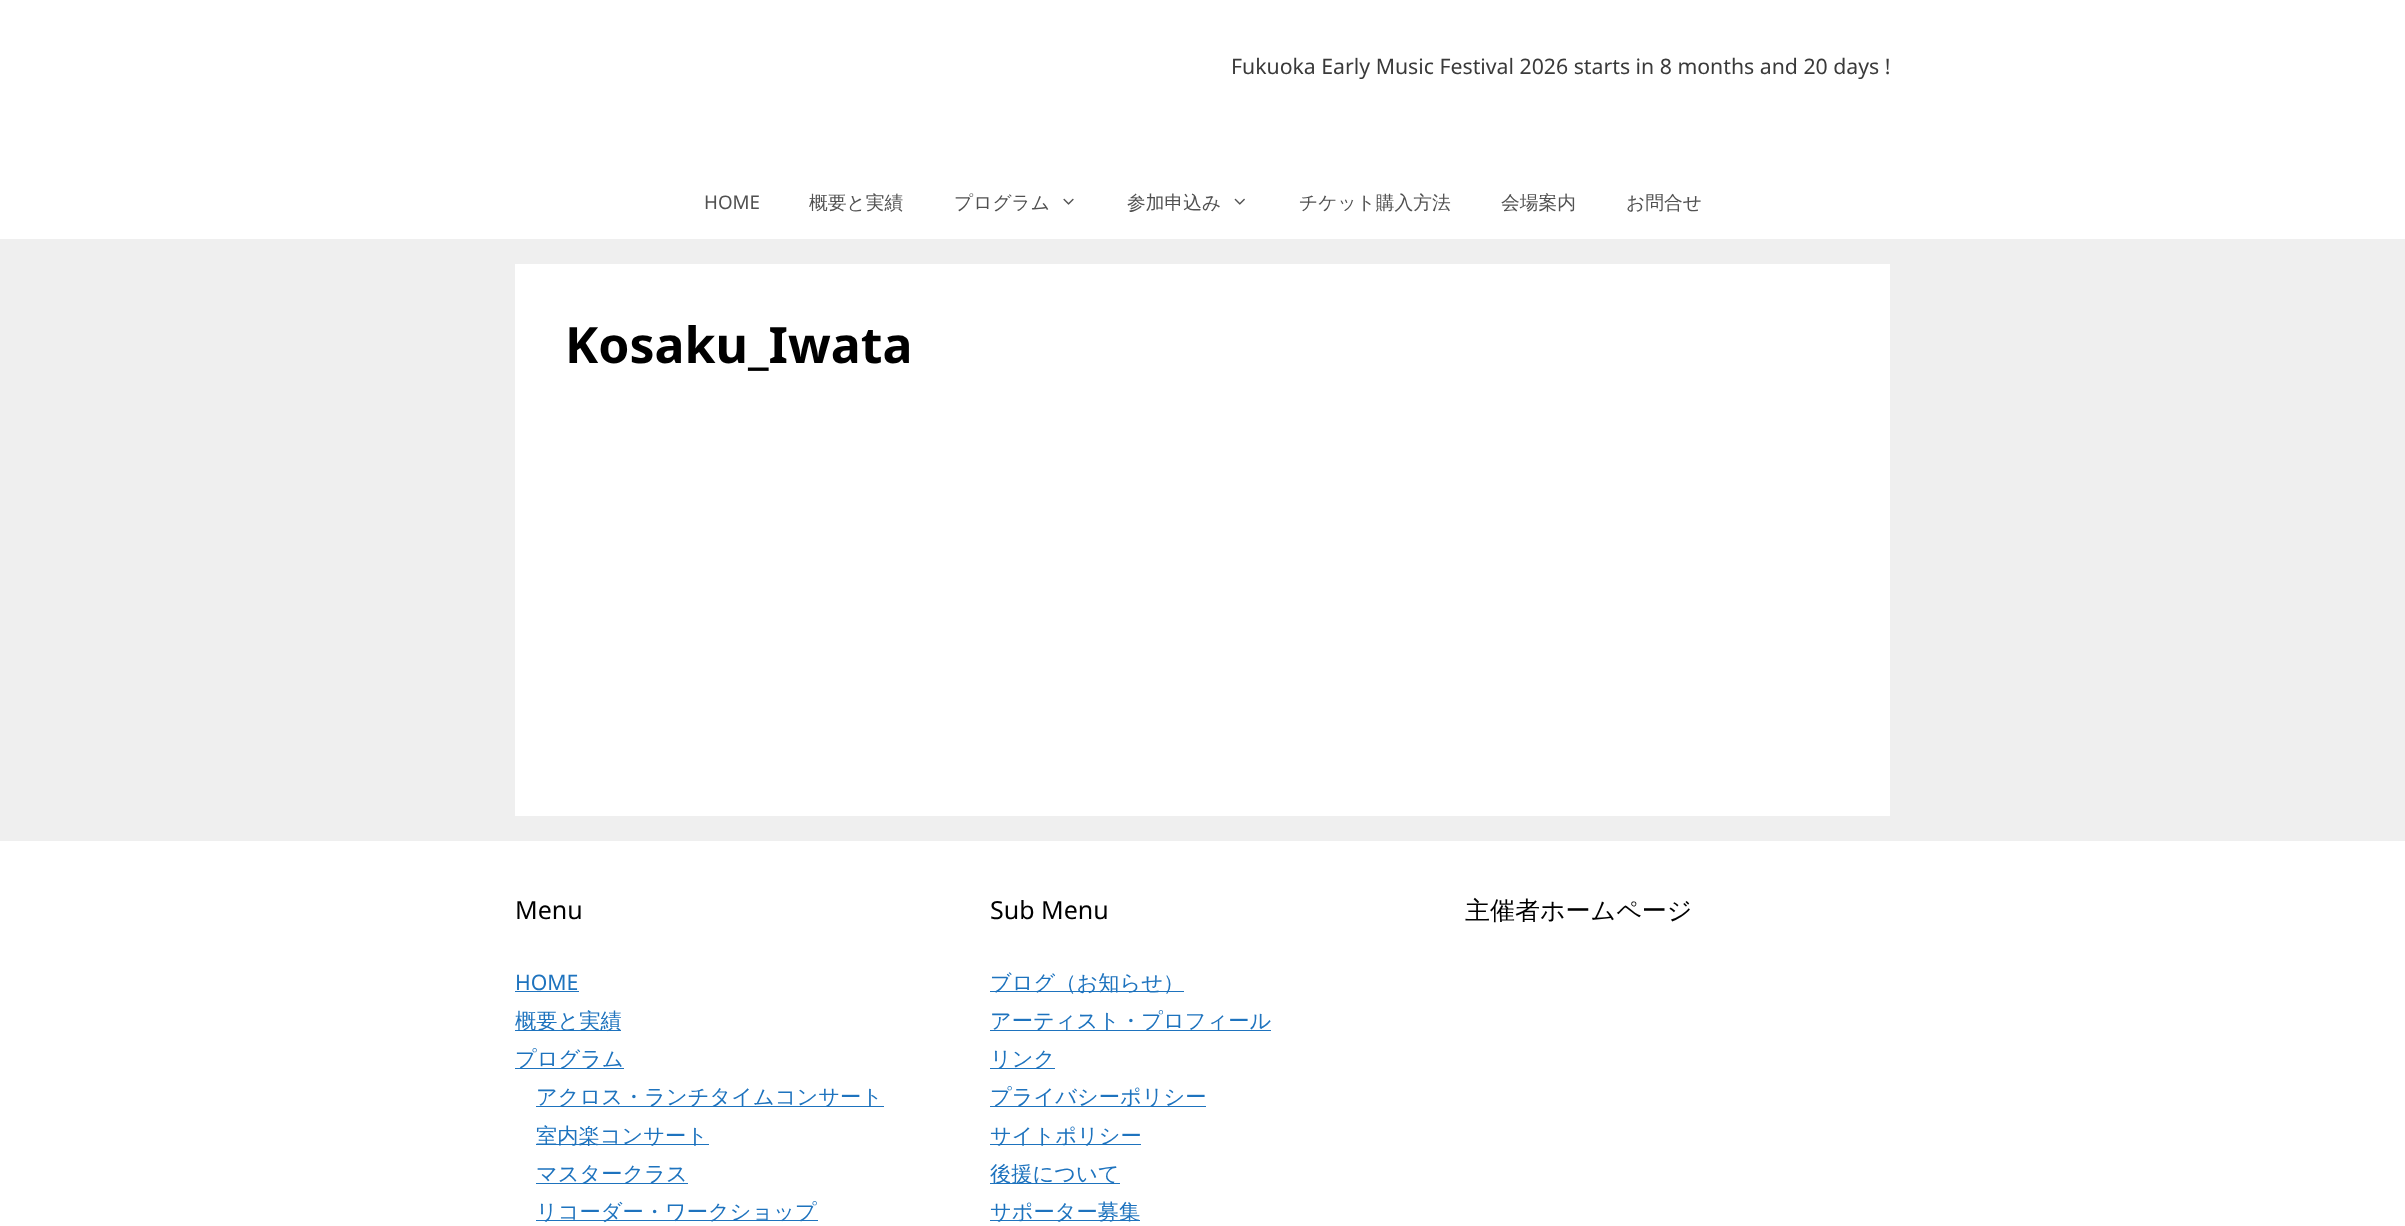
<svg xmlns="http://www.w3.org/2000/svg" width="2405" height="1226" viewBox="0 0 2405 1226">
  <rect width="100%" height="100%" fill="rgb(239,239,239)"/>
  <rect x="0" y="0" width="2405" height="239" fill="rgb(255,255,255)"/>
  <text x="1231" y="74" font-family="Noto Sans" font-size="21.25" fill="rgb(58,58,58)">Fukuoka Early Music Festival 2026 starts in 8 months and 20 days !</text>
  <text x="704" y="209" font-family="Noto Sans" font-size="18.75" fill="rgb(81,81,81)">HOME</text>
  <g font-family="WenQuanYi Zen Hei" font-size="18.75" font-weight="500" fill="rgb(81,81,81)">
    <text x="809" y="209">概要と実績</text>
    <text x="954" y="209">プログラム</text>
  </g>
  <image x="1063" y="198" width="11" height="7" href="pic1.png"/>
  <text x="1127" y="209" font-family="WenQuanYi Zen Hei" font-size="18.75" font-weight="500" fill="rgb(81,81,81)">参加申込み</text>
  <image x="1234" y="198" width="11" height="7" href="pic2.png"/>
  <g font-family="WenQuanYi Zen Hei" font-size="18.75" font-weight="500" fill="rgb(81,81,81)">
    <text x="1299" y="209">チケット購入方法</text>
    <text x="1501" y="209">会場案内</text>
    <text x="1626" y="209">お問合せ</text>
  </g>
  <rect x="515" y="264" width="1375" height="552" fill="rgb(255,255,255)"/>
  <text x="565" y="363" font-family="Noto Sans" font-size="50" font-weight="bold" fill="rgb(0,0,0)">Kosaku_Iwata</text>
  <rect x="0" y="841" width="2405" height="385" fill="rgb(255,255,255)"/>
  <text x="515" y="919" font-family="Noto Sans" font-size="25" fill="rgb(0,0,0)">Menu</text>
  <text x="515" y="990" font-family="Noto Sans" font-size="21.25" fill="rgb(30,115,190)">HOME</text>
  <rect x="515" y="991" width="64" height="1" fill="rgb(30,115,190)"/>
  <rect x="515" y="1030" width="106" height="1" fill="rgb(30,115,190)"/>
  <text x="515" y="1028" font-family="WenQuanYi Zen Hei" font-size="21.25" font-weight="500" fill="rgb(30,115,190)">概要と実績</text>
  <rect x="515" y="1068" width="109" height="1" fill="rgb(30,115,190)"/>
  <text x="515" y="1066" font-family="WenQuanYi Zen Hei" font-size="21.25" font-weight="500" fill="rgb(30,115,190)">プログラム</text>
  <rect x="536" y="1106" width="348" height="1" fill="rgb(30,115,190)"/>
  <text x="536" y="1104" font-family="WenQuanYi Zen Hei" font-size="21.25" font-weight="500" fill="rgb(30,115,190)">アクロス・ランチタイムコンサート</text>
  <rect x="536" y="1144" width="173" height="1" fill="rgb(30,115,190)"/>
  <text x="536" y="1143" font-family="WenQuanYi Zen Hei" font-size="21.25" font-weight="500" fill="rgb(30,115,190)">室内楽コンサート</text>
  <rect x="536" y="1183" width="152" height="1" fill="rgb(30,115,190)"/>
  <text x="536" y="1181" font-family="WenQuanYi Zen Hei" font-size="21.25" font-weight="500" fill="rgb(30,115,190)">マスタークラス</text>
  <rect x="536" y="1220" width="282" height="1" fill="rgb(30,115,190)"/>
  <text x="536" y="1219" font-family="WenQuanYi Zen Hei" font-size="21.25" font-weight="500" fill="rgb(30,115,190)">リコーダー・ワークショップ</text>
  <text x="990" y="919" font-family="Noto Sans" font-size="25" fill="rgb(0,0,0)">Sub Menu</text>
  <rect x="990" y="991" width="194" height="1" fill="rgb(30,115,190)"/>
  <text x="990" y="990" font-family="WenQuanYi Zen Hei" font-size="21.25" font-weight="500" fill="rgb(30,115,190)">ブログ（お知らせ）</text>
  <rect x="990" y="1030" width="281" height="1" fill="rgb(30,115,190)"/>
  <text x="990" y="1028" font-family="WenQuanYi Zen Hei" font-size="21.25" font-weight="500" fill="rgb(30,115,190)">アーティスト・プロフィール</text>
  <rect x="990" y="1068" width="65" height="1" fill="rgb(30,115,190)"/>
  <text x="990" y="1066" font-family="WenQuanYi Zen Hei" font-size="21.25" font-weight="500" fill="rgb(30,115,190)">リンク</text>
  <rect x="990" y="1106" width="216" height="1" fill="rgb(30,115,190)"/>
  <text x="990" y="1104" font-family="WenQuanYi Zen Hei" font-size="21.25" font-weight="500" fill="rgb(30,115,190)">プライバシーポリシー</text>
  <rect x="990" y="1144" width="151" height="1" fill="rgb(30,115,190)"/>
  <text x="990" y="1143" font-family="WenQuanYi Zen Hei" font-size="21.25" font-weight="500" fill="rgb(30,115,190)">サイトポリシー</text>
  <rect x="990" y="1183" width="130" height="1" fill="rgb(30,115,190)"/>
  <text x="990" y="1181" font-family="WenQuanYi Zen Hei" font-size="21.25" font-weight="500" fill="rgb(30,115,190)">後援について</text>
  <rect x="990" y="1220" width="150" height="1" fill="rgb(30,115,190)"/>
  <text x="990" y="1219" font-family="WenQuanYi Zen Hei" font-size="21.25" font-weight="500" fill="rgb(30,115,190)">サポーター募集</text>
  <text x="1465" y="919" font-family="WenQuanYi Zen Hei" font-size="25" font-weight="500" fill="rgb(0,0,0)">主催者ホームページ</text>
</svg>
